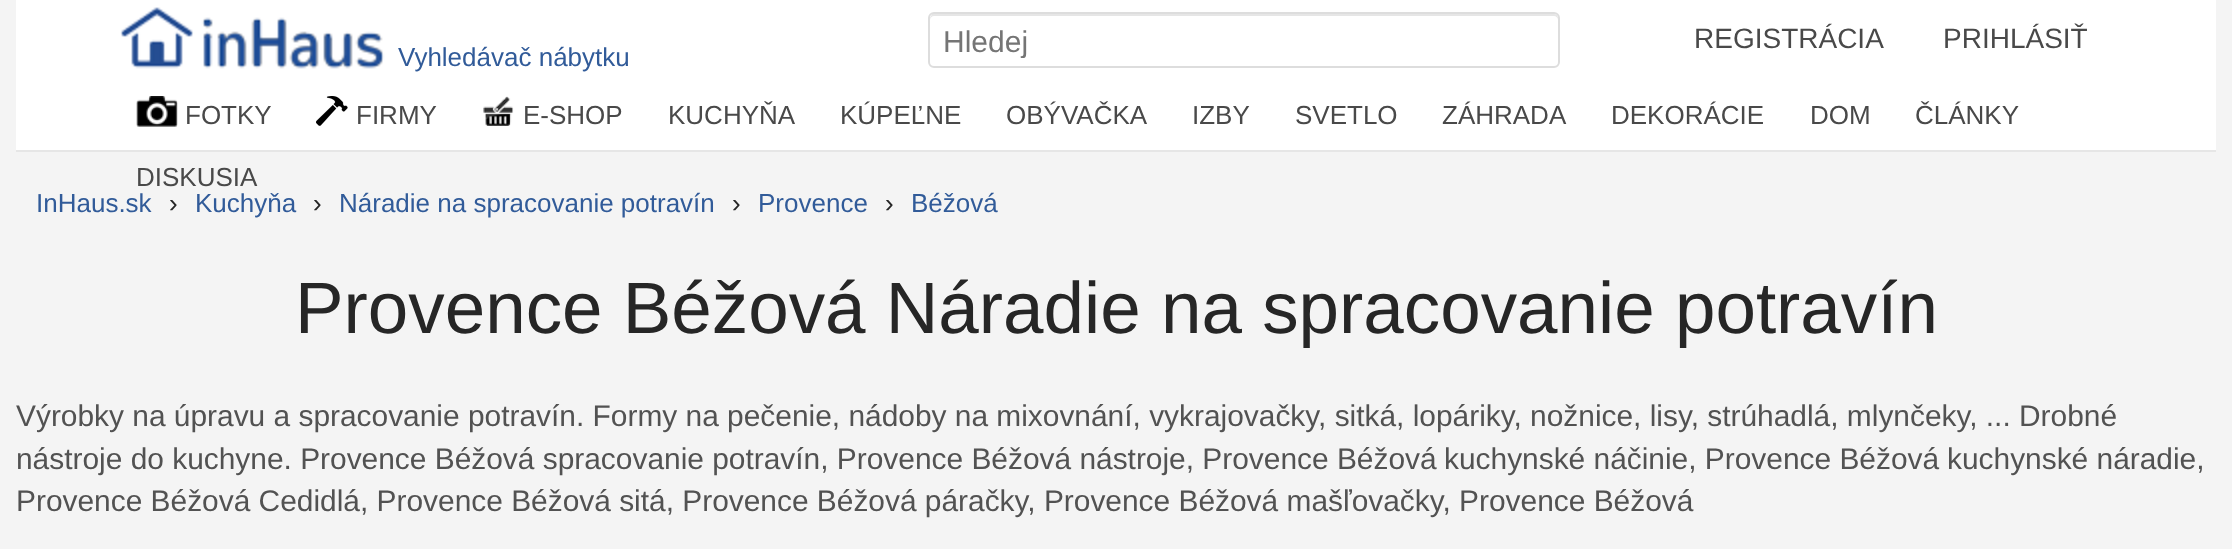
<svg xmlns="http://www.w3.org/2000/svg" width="2232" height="549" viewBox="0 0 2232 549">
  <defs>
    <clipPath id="clip1"><rect x="944" y="24" width="600" height="34"/></clipPath>
  </defs>
  <rect width="100%" height="100%" fill="rgb(244,244,244)"/>
  <rect x="16" y="0" width="2200" height="150" fill="rgb(255,255,255)"/>
  <rect x="16" y="150" width="2200" height="2" fill="rgb(230,230,230)"/>
  <image x="120" y="7" width="265" height="62" href="pic1.png"/>
  <text x="398" y="66" font-family="Liberation Sans" font-size="26" fill="rgb(49,91,153)">Vyhledávač nábytku</text>
  <path d="M934 16H1554C1556 16 1558 18 1558 20C1558 17 1558 14 1554 14H932L931 16C930 17 930 19 930 20C930 18 932 16 934 16Z" fill="rgb(230,230,230)"/>
  <rect x="929" y="13" width="630" height="54" rx="5" fill="none" stroke="rgb(221,221,221)" stroke-width="2"/>
  <g clip-path="url(#clip1)">
    <text x="943" y="52" font-family="Liberation Sans" font-size="30" fill="rgb(117,117,117)">Hledej</text>
  </g>
  <g font-family="Liberation Sans" font-size="28" fill="rgb(73,73,73)">
    <text x="1694" y="48">REGISTRÁCIA</text>
    <text x="1943" y="48">PRIHLÁSIŤ</text>
  </g>
  <image x="136" y="96" width="42" height="31" href="pic2.png"/>
  <text x="185" y="124" font-family="Liberation Sans" font-size="26" fill="rgb(73,73,73)">FOTKY</text>
  <image x="316" y="96" width="32" height="30" href="pic3.png"/>
  <text x="356" y="124" font-family="Liberation Sans" font-size="26" fill="rgb(73,73,73)">FIRMY</text>
  <image x="483" y="96" width="31" height="30" href="pic4.png"/>
  <g font-family="Liberation Sans" font-size="26" fill="rgb(73,73,73)">
    <text x="523" y="124">E-SHOP</text>
    <text x="668" y="124">KUCHYŇA</text>
    <text x="840" y="124">KÚPEĽNE</text>
    <text x="1006" y="124">OBÝVAČKA</text>
    <text x="1192" y="124">IZBY</text>
    <text x="1295" y="124">SVETLO</text>
    <text x="1442" y="124">ZÁHRADA</text>
    <text x="1611" y="124">DEKORÁCIE</text>
    <text x="1810" y="124">DOM</text>
    <text x="1915" y="124">ČLÁNKY</text>
    <text x="136" y="186">DISKUSIA</text>
  </g>
  <text x="36" y="212" font-family="Liberation Sans" font-size="26" fill="rgb(49,91,153)">InHaus.sk</text>
  <text x="169" y="212" font-family="Liberation Sans" font-size="26" fill="rgb(38,38,38)">›</text>
  <text x="195" y="212" font-family="Liberation Sans" font-size="26" fill="rgb(49,91,153)">Kuchyňa</text>
  <text x="313" y="212" font-family="Liberation Sans" font-size="26" fill="rgb(38,38,38)">›</text>
  <text x="339" y="212" font-family="Liberation Sans" font-size="26" fill="rgb(49,91,153)">Náradie na spracovanie potravín</text>
  <text x="732" y="212" font-family="Liberation Sans" font-size="26" fill="rgb(38,38,38)">›</text>
  <text x="758" y="212" font-family="Liberation Sans" font-size="26" fill="rgb(49,91,153)">Provence</text>
  <text x="885" y="212" font-family="Liberation Sans" font-size="26" fill="rgb(38,38,38)">›</text>
  <text x="911" y="212" font-family="Liberation Sans" font-size="26" fill="rgb(49,91,153)">Béžová</text>
  <text x="295" y="333" font-family="Liberation Sans" font-size="72.8" fill="rgb(38,38,38)">Provence Béžová Náradie na spracovanie potravín</text>
  <g font-family="Liberation Sans" font-size="29.9" fill="rgb(82,82,82)">
    <text>
      <tspan x="16" y="426">Výrobky na úpravu a spracovanie potravín. Formy na pečenie, nádoby na mixovnání, vykrajovačky, sitká, lopáriky, nožnice, lisy, strúhadlá, mlynčeky, ... Drobné</tspan>
      <tspan x="16" y="469">nástroje do kuchyne. Provence Béžová spracovanie potravín, Provence Béžová nástroje, Provence Béžová</tspan>
    </text>
    <text x="1444" y="469">kuchynské náčinie, Provence Béžová</text>
    <text x="1947" y="469">kuchynské náradie,</text>
    <text x="16" y="511">Provence Béžová Cedidlá, Provence Béžová sitá, Provence Béžová páračky, Provence Béžová mašľovačky, Provence Béžová</text>
  </g>
</svg>
